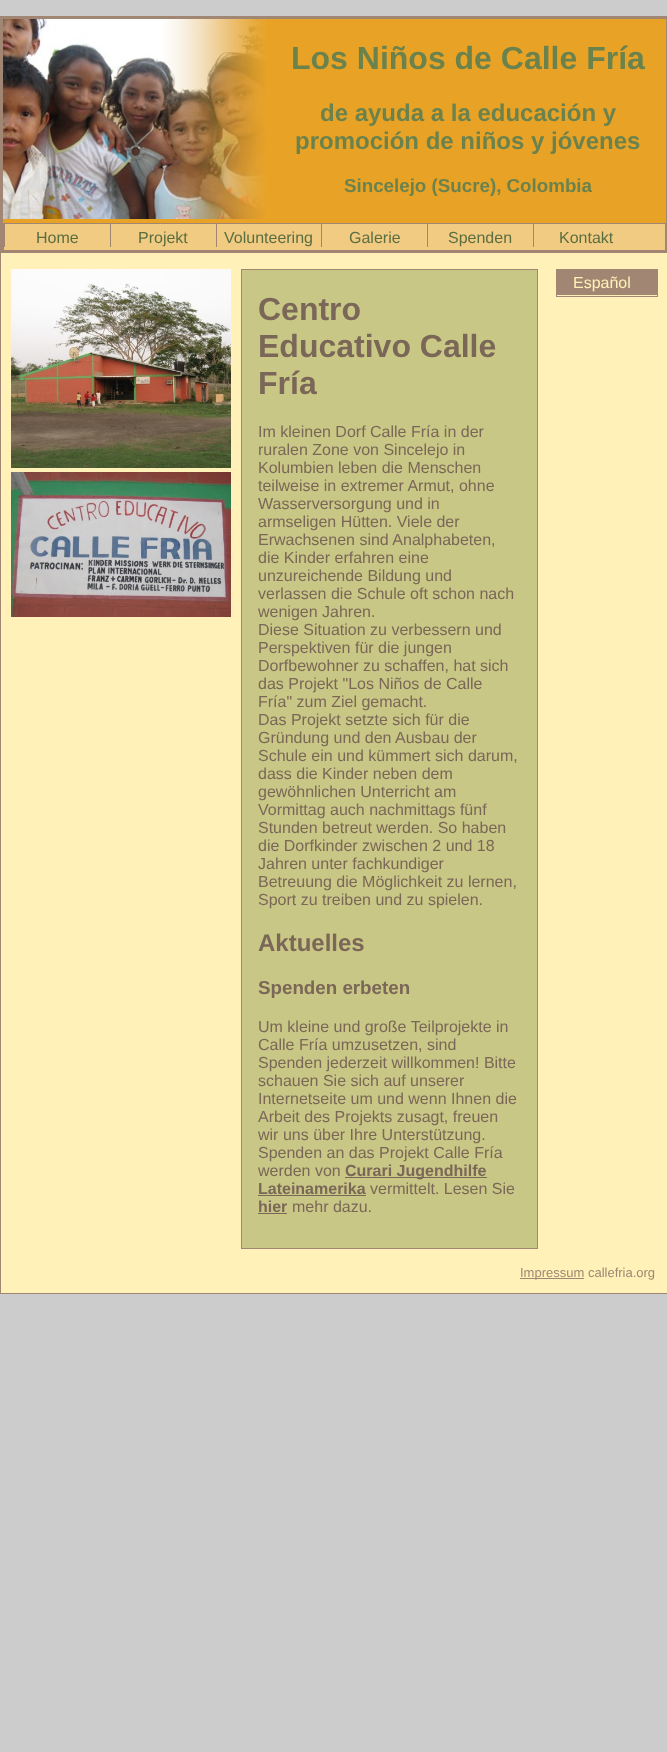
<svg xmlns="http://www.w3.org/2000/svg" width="667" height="1752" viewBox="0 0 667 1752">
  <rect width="100%" height="100%" fill="rgb(204,204,204)"/>
  <rect x="1" y="253" width="666" height="1040" fill="rgb(255,241,183)"/>
  <rect x="0.5" y="16.5" width="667" height="1277" fill="none" stroke="rgb(161,135,115)"/>
  <rect x="3" y="19" width="663" height="204" fill="rgb(232,163,39)"/>
  <rect x="2" y="18" width="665" height="234" fill="none" stroke="rgb(161,135,115)" stroke-width="2"/>
  <image x="3" y="19" width="263" height="200" href="pic1.png"/>
  <text x="291" y="69" font-family="Liberation Sans" font-size="32" font-weight="bold" fill="rgb(108,130,76)">Los Niños de Calle Fría</text>
  <g font-family="Liberation Sans" font-size="24" font-weight="bold" fill="rgb(108,130,76)">
    <text x="320" y="121">de ayuda a la educación y</text>
    <text x="295" y="149">promoción de niños y jóvenes</text>
  </g>
  <text x="344" y="192" font-family="Liberation Sans" font-size="18.75" font-weight="bold" fill="rgb(108,130,76)">Sincelejo (Sucre), Colombia</text>
  <rect x="3.5" y="223.5" width="662" height="27" fill="rgb(242,203,131)" stroke="rgb(161,135,115)"/>
  <rect x="4" y="224" width="1" height="23" fill="rgb(161,135,115)"/>
  <text x="36" y="243" font-family="Liberation Sans" font-size="16" fill="rgb(91,110,64)">Home</text>
  <rect x="110" y="224" width="1" height="23" fill="rgb(161,135,115)"/>
  <text x="138" y="243" font-family="Liberation Sans" font-size="16" fill="rgb(91,110,64)">Projekt</text>
  <rect x="216" y="224" width="1" height="23" fill="rgb(161,135,115)"/>
  <text x="224" y="243" font-family="Liberation Sans" font-size="16" fill="rgb(91,110,64)">Volunteering</text>
  <rect x="321" y="224" width="1" height="23" fill="rgb(161,135,115)"/>
  <text x="349" y="243" font-family="Liberation Sans" font-size="16" fill="rgb(91,110,64)">Galerie</text>
  <rect x="427" y="224" width="1" height="23" fill="rgb(161,135,115)"/>
  <text x="448" y="243" font-family="Liberation Sans" font-size="16" fill="rgb(91,110,64)">Spenden</text>
  <rect x="533" y="224" width="1" height="23" fill="rgb(161,135,115)"/>
  <text x="559" y="243" font-family="Liberation Sans" font-size="16" fill="rgb(91,110,64)">Kontakt</text>
  <image x="11" y="269" width="220" height="199" href="pic2.png"/>
  <image x="11" y="472" width="220" height="145" href="pic3.png"/>
  <rect x="556.5" y="269.5" width="101" height="27" fill="none" stroke="rgb(161,135,115)"/>
  <rect x="557" y="270" width="100" height="25" fill="rgb(161,135,115)"/>
  <text x="573" y="288" font-family="Liberation Sans" font-size="16" fill="rgb(255,241,183)">Español</text>
  <rect x="241.5" y="269.5" width="296" height="979" fill="rgb(201,199,134)" stroke="rgb(161,135,115)"/>
  <g font-family="Liberation Sans" font-size="32" font-weight="bold" fill="rgb(122,103,87)">
    <text>
      <tspan x="258" y="320">Centro</tspan>
      <tspan x="258" y="357">Educativo Calle</tspan>
      <tspan x="258" y="394">Fría</tspan>
    </text>
  </g>
  <g font-family="Liberation Sans" font-size="16" fill="rgb(122,103,87)">
    <text>
      <tspan x="258" y="437">Im kleinen Dorf Calle Fría in der</tspan>
      <tspan x="258" y="455">ruralen Zone von Sincelejo in</tspan>
      <tspan x="258" y="473">Kolumbien leben die Menschen</tspan>
      <tspan x="258" y="491">teilweise in extremer Armut, ohne</tspan>
      <tspan x="258" y="509">Wasserversorgung und in</tspan>
      <tspan x="258" y="527">armseligen Hütten. Viele der</tspan>
      <tspan x="258" y="545">Erwachsenen sind Analphabeten,</tspan>
      <tspan x="258" y="563">die Kinder erfahren eine</tspan>
      <tspan x="258" y="581">unzureichende Bildung und</tspan>
      <tspan x="258" y="599">verlassen die Schule oft schon nach</tspan>
      <tspan x="258" y="617">wenigen Jahren.</tspan>
      <tspan x="258" y="635">Diese Situation zu verbessern und</tspan>
      <tspan x="258" y="653">Perspektiven für die jungen</tspan>
      <tspan x="258" y="671">Dorfbewohner zu schaffen, hat sich</tspan>
      <tspan x="258" y="689">das Projekt "Los Niños de Calle</tspan>
      <tspan x="258" y="707">Fría" zum Ziel gemacht.</tspan>
      <tspan x="258" y="725">Das Projekt setzte sich für die</tspan>
      <tspan x="258" y="743">Gründung und den Ausbau der</tspan>
      <tspan x="258" y="761">Schule ein und kümmert sich darum,</tspan>
      <tspan x="258" y="779">dass die Kinder neben dem</tspan>
      <tspan x="258" y="797">gewöhnlichen Unterricht am</tspan>
      <tspan x="258" y="815">Vormittag auch nachmittags fünf</tspan>
      <tspan x="258" y="833">Stunden betreut werden. So haben</tspan>
      <tspan x="258" y="851">die Dorfkinder zwischen 2 und 18</tspan>
      <tspan x="258" y="869">Jahren unter fachkundiger</tspan>
      <tspan x="258" y="887">Betreuung die Möglichkeit zu lernen,</tspan>
      <tspan x="258" y="905">Sport zu treiben und zu spielen.</tspan>
    </text>
  </g>
  <text x="258" y="951" font-family="Liberation Sans" font-size="24" font-weight="bold" fill="rgb(122,103,87)">Aktuelles</text>
  <text x="258" y="994" font-family="Liberation Sans" font-size="18.75" font-weight="bold" fill="rgb(122,103,87)">Spenden erbeten</text>
  <g font-family="Liberation Sans" font-size="16" fill="rgb(122,103,87)">
    <text>
      <tspan x="258" y="1032">Um kleine und große Teilprojekte in</tspan>
      <tspan x="258" y="1050">Calle Fría umzusetzen, sind</tspan>
      <tspan x="258" y="1068">Spenden jederzeit willkommen! Bitte</tspan>
      <tspan x="258" y="1086">schauen Sie sich auf unserer</tspan>
      <tspan x="258" y="1104">Internetseite um und wenn Ihnen die</tspan>
      <tspan x="258" y="1122">Arbeit des Projekts zusagt, freuen</tspan>
      <tspan x="258" y="1140">wir uns über Ihre Unterstützung.</tspan>
      <tspan x="258" y="1158">Spenden an das Projekt Calle Fría</tspan>
      <tspan x="258" y="1176">werden von</tspan>
    </text>
  </g>
  <rect x="345" y="1177" width="142" height="1" fill="rgb(122,103,87)"/>
  <g font-family="Liberation Sans" font-size="16" font-weight="bold" fill="rgb(122,103,87)">
    <text x="345" y="1176">Curari Jugendhilfe</text>
    <text x="258" y="1194">Lateinamerika</text>
  </g>
  <rect x="258" y="1195" width="108" height="1" fill="rgb(122,103,87)"/>
  <text x="370" y="1194" font-family="Liberation Sans" font-size="16" fill="rgb(122,103,87)">vermittelt. Lesen Sie</text>
  <text x="258" y="1212" font-family="Liberation Sans" font-size="16" font-weight="bold" fill="rgb(122,103,87)">hier</text>
  <rect x="258" y="1213" width="29" height="1" fill="rgb(122,103,87)"/>
  <text x="292" y="1212" font-family="Liberation Sans" font-size="16" fill="rgb(122,103,87)">mehr dazu.</text>
  <rect x="520" y="1278" width="64" height="1" fill="rgb(161,135,115)"/>
  <text x="520" y="1277" font-family="Liberation Sans" font-size="13" fill="rgb(161,135,115)">Impressum callefria.org</text>
</svg>
